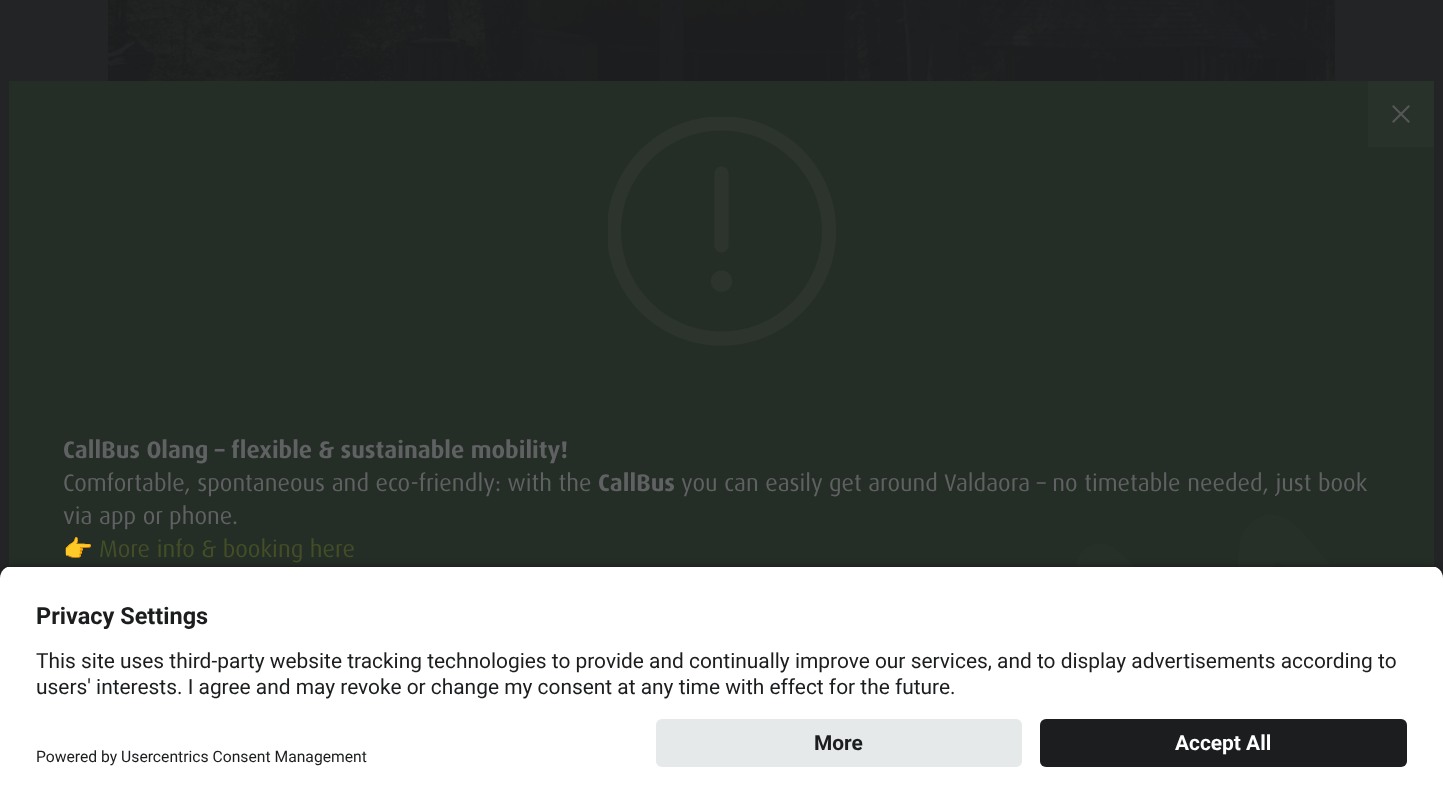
<svg xmlns="http://www.w3.org/2000/svg" width="1443" height="802" viewBox="0 0 1443 802">
  <defs>
    <clipPath id="clip1"><path d="M12 566H1431C1437.5 566 1443 571.5 1443 578V707H0V578C0 571.5 5.5 566 12 566Z"/></clipPath>
  </defs>
  <rect width="100%" height="100%" fill="rgb(35,36,37)"/>
  <image x="108" y="0" width="737" height="81" href="pic1.png"/>
  <image x="844" y="0" width="491" height="81" href="pic2.png"/>
  <rect x="9" y="81" width="1425" height="486" fill="rgb(36,45,38)"/>
  <image x="608" y="117" width="229" height="229" href="pic3.png"/>
  <rect x="1368" y="81" width="66" height="66" fill="rgb(41,49,43)"/>
  <image x="1392" y="105" width="18" height="18" href="pic4.png"/>
  <text x="63" y="458" font-family="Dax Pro" font-size="23.9" font-weight="bold" fill="rgb(95,97,98)">CallBus Olang – flexible &amp; sustainable mobility!</text>
  <text x="63" y="491" font-family="Dax Pro" font-size="23.9" fill="rgb(95,97,98)">Comfortable, spontaneous and eco-friendly: with the</text>
  <text x="598" y="491" font-family="Dax Pro" font-size="23.9" font-weight="bold" fill="rgb(95,97,98)">CallBus</text>
  <g font-family="Dax Pro" font-size="23.9" fill="rgb(95,97,98)">
    <text x="681" y="491">you can easily get around Valdaora – no timetable needed, just book</text>
    <text x="63" y="524">via app or phone.</text>
  </g>
  <text x="63" y="557" font-family="Noto Color Emoji" font-size="23.9" fill="rgb(95,97,98)">👉</text>
  <text x="99" y="557" font-family="Dax Pro" font-size="23.9" fill="rgb(67,78,39)">More info &amp; booking here</text>
  <image x="1076" y="515" width="255" height="52" href="pic5.png"/>
  <rect x="0" y="570" width="1443" height="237" rx="12" fill="rgba(0,0,0,0.8)" filter="blur(5px)"/>
  <g clip-path="url(#clip1)">
    <rect x="0" y="567" width="1443" height="140" fill="rgb(255,255,255)"/>
  </g>
  <text x="36" y="624" font-family="Roboto" font-size="23.5" font-weight="bold" fill="rgb(27,29,31)">Privacy Settings</text>
  <g font-family="Roboto" font-size="20.9" fill="rgb(27,29,31)">
    <text>
      <tspan x="36" y="668">This site uses third-party website tracking technologies to provide and continually improve our services, and to display advertisements according to</tspan>
      <tspan x="36" y="694">users' interests. I agree and may revoke or change my consent at any time with effect for the future.</tspan>
    </text>
  </g>
  <rect x="0" y="707" width="1443" height="95" fill="rgb(255,255,255)"/>
  <rect x="656" y="719" width="366" height="48" rx="6" fill="rgb(229,233,234)"/>
  <text x="814" y="750" font-family="Roboto" font-size="20.9" font-weight="bold" fill="rgb(27,29,31)">More</text>
  <rect x="1040" y="719" width="367" height="48" rx="6" fill="rgb(27,29,31)"/>
  <text x="1175" y="750" font-family="Roboto" font-size="20.9" font-weight="bold" fill="rgb(255,255,255)">Accept All</text>
  <text x="36" y="762" font-family="Roboto" font-size="15.7" fill="rgb(27,29,31)">Powered by Usercentrics Consent Management</text>
</svg>
